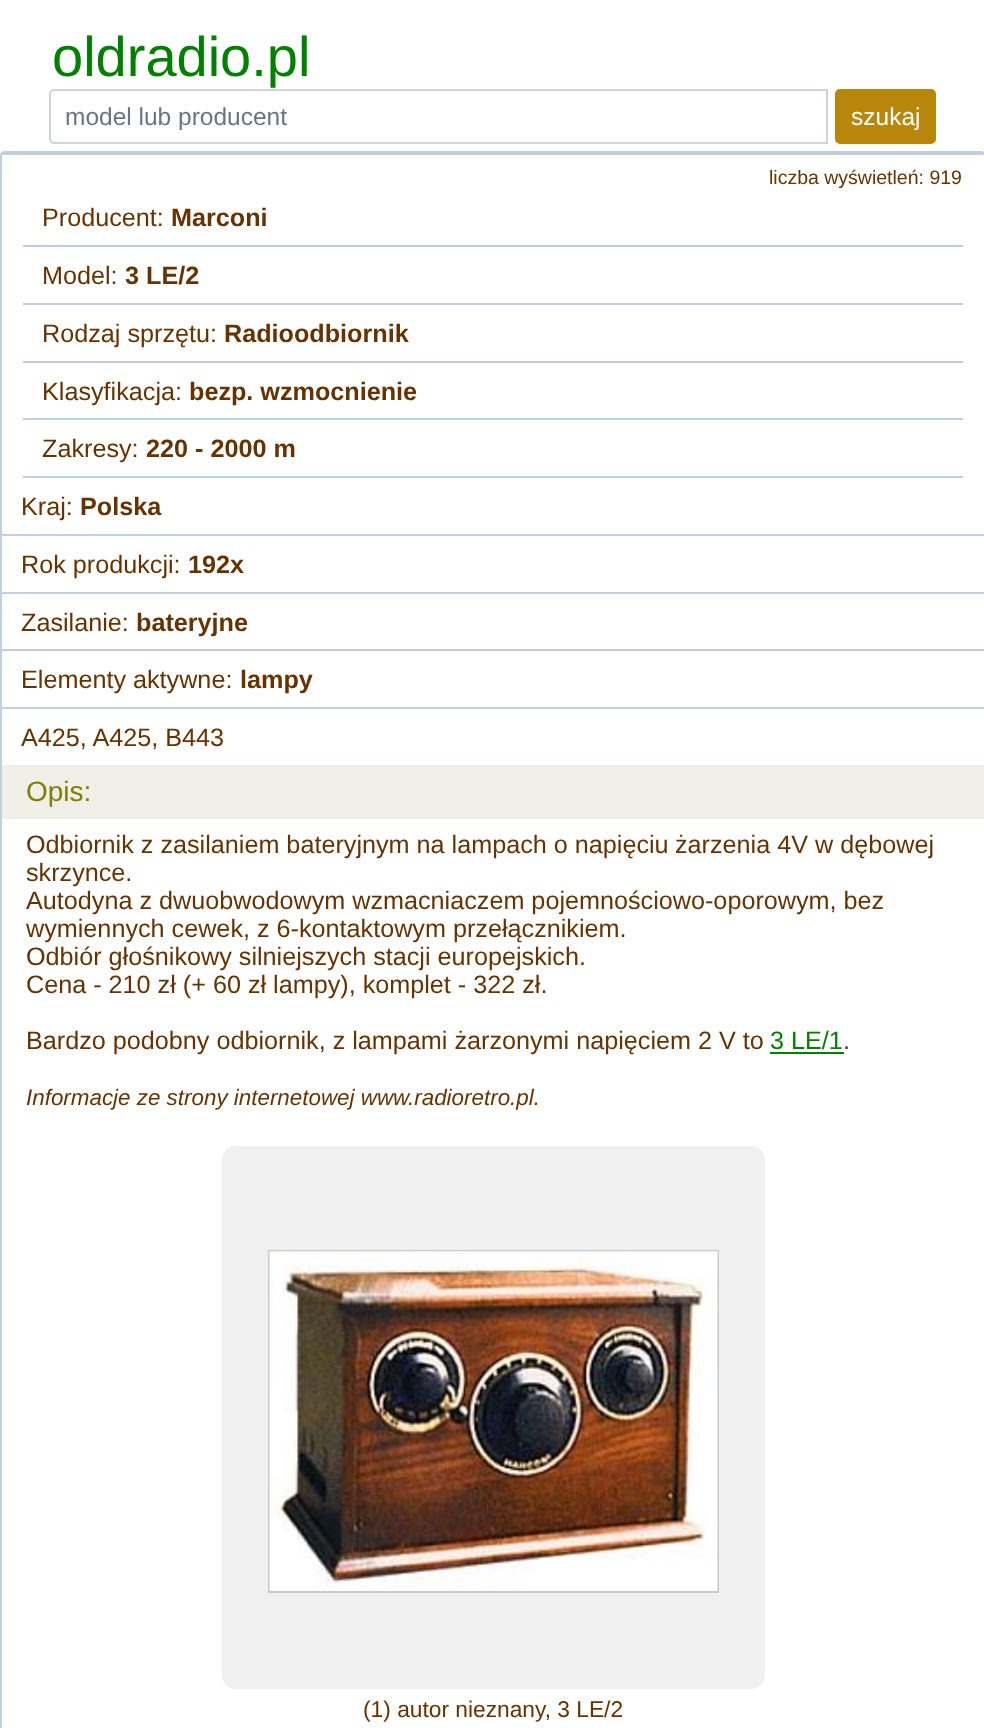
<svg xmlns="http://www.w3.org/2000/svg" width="984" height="1728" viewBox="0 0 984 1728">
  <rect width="100%" height="100%" fill="rgb(255,255,255)"/>
  <text x="52" y="76" font-family="Liberation Sans" font-size="56" fill="rgb(0,128,0)">oldradio.pl</text>
  <path d="M54 90H827V143H54C52 143 50 141 50 139V94C50 92 52 90 54 90Z" fill="none" stroke="rgb(206,212,218)" stroke-width="2"/>
  <text x="65" y="125" font-family="Liberation Sans" font-size="24.5" fill="rgb(108,117,125)">model lub producent</text>
  <rect x="836" y="90" width="99" height="53" rx="4" fill="rgb(184,134,11)" stroke="rgb(184,134,11)" stroke-width="2"/>
  <text x="851" y="125" font-family="Liberation Sans" font-size="24.5" fill="rgb(255,255,255)">szukaj</text>
  <path d="M4 151H981C983 151 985 153 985 155H0C0 153 2 151 4 151Z" fill="rgb(194,207,223)"/>
  <rect x="0" y="154" width="2" height="1574" fill="rgb(194,207,223)"/>
  <text x="769" y="184" font-family="Liberation Sans" font-size="19.5" fill="rgb(102,51,0)">liczba wyświetleń: 919</text>
  <rect x="23" y="245" width="940" height="2" fill="rgb(194,207,223)"/>
  <text x="42" y="226" font-family="Liberation Sans" font-size="25.2" fill="rgb(102,51,0)">Producent:</text>
  <text x="171" y="226" font-family="Liberation Sans" font-size="25.2" font-weight="bold" fill="rgb(102,51,0)">Marconi</text>
  <rect x="23" y="303" width="940" height="2" fill="rgb(194,207,223)"/>
  <text x="42" y="284" font-family="Liberation Sans" font-size="25.2" fill="rgb(102,51,0)">Model:</text>
  <text x="125" y="284" font-family="Liberation Sans" font-size="25.2" font-weight="bold" fill="rgb(102,51,0)">3 LE/2</text>
  <rect x="23" y="361" width="940" height="2" fill="rgb(194,207,223)"/>
  <text x="42" y="342" font-family="Liberation Sans" font-size="25.2" fill="rgb(102,51,0)">Rodzaj sprzętu:</text>
  <text x="224" y="342" font-family="Liberation Sans" font-size="25.2" font-weight="bold" fill="rgb(102,51,0)">Radioodbiornik</text>
  <rect x="23" y="418" width="940" height="2" fill="rgb(194,207,223)"/>
  <text x="42" y="400" font-family="Liberation Sans" font-size="25.2" fill="rgb(102,51,0)">Klasyfikacja:</text>
  <text x="189" y="400" font-family="Liberation Sans" font-size="25.2" font-weight="bold" fill="rgb(102,51,0)">bezp. wzmocnienie</text>
  <rect x="23" y="476" width="940" height="2" fill="rgb(194,207,223)"/>
  <text x="42" y="457" font-family="Liberation Sans" font-size="25.2" fill="rgb(102,51,0)">Zakresy:</text>
  <text x="146" y="457" font-family="Liberation Sans" font-size="25.2" font-weight="bold" fill="rgb(102,51,0)">220 - 2000 m</text>
  <rect x="2" y="534" width="982" height="2" fill="rgb(194,207,223)"/>
  <text x="21" y="515" font-family="Liberation Sans" font-size="25.2" fill="rgb(102,51,0)">Kraj:</text>
  <text x="80" y="515" font-family="Liberation Sans" font-size="25.2" font-weight="bold" fill="rgb(102,51,0)">Polska</text>
  <rect x="2" y="592" width="982" height="2" fill="rgb(194,207,223)"/>
  <text x="21" y="573" font-family="Liberation Sans" font-size="25.2" fill="rgb(102,51,0)">Rok produkcji:</text>
  <text x="188" y="573" font-family="Liberation Sans" font-size="25.2" font-weight="bold" fill="rgb(102,51,0)">192x</text>
  <rect x="2" y="649" width="982" height="2" fill="rgb(194,207,223)"/>
  <text x="21" y="631" font-family="Liberation Sans" font-size="25.2" fill="rgb(102,51,0)">Zasilanie:</text>
  <text x="136" y="631" font-family="Liberation Sans" font-size="25.2" font-weight="bold" fill="rgb(102,51,0)">bateryjne</text>
  <rect x="2" y="707" width="982" height="2" fill="rgb(194,207,223)"/>
  <text x="21" y="688" font-family="Liberation Sans" font-size="25.2" fill="rgb(102,51,0)">Elementy aktywne:</text>
  <text x="240" y="688" font-family="Liberation Sans" font-size="25.2" font-weight="bold" fill="rgb(102,51,0)">lampy</text>
  <text x="21" y="746" font-family="Liberation Sans" font-size="25.2" fill="rgb(102,51,0)">A425, A425, B443</text>
  <rect x="2" y="765" width="982" height="54" fill="rgb(240,240,232)"/>
  <text x="26" y="801" font-family="Liberation Sans" font-size="28" fill="rgb(128,128,0)">Opis:</text>
  <g font-family="Liberation Sans" font-size="25.2" fill="rgb(102,51,0)">
    <text x="26" y="853">Odbiornik z zasilaniem bateryjnym na lampach o napięciu</text>
    <text x="675" y="853">żarzenia 4V w dębowej</text>
    <text>
      <tspan x="26" y="881">skrzynce.</tspan>
      <tspan x="26" y="909">Autodyna z dwuobwodowym wzmacniaczem pojemnościowo-oporowym, bez</tspan>
      <tspan x="26" y="937">wymiennych cewek, z 6-kontaktowym przełącznikiem.</tspan>
      <tspan x="26" y="965">Odbiór głośnikowy silniejszych stacji europejskich.</tspan>
      <tspan x="26" y="993">Cena - 210 zł (+ 60 zł lampy), komplet - 322 zł.</tspan>
    </text>
    <text x="26" y="1049">Bardzo podobny odbiornik, z lampami żarzonymi napięciem 2 V to</text>
  </g>
  <text x="770" y="1049" font-family="Liberation Sans" font-size="25.2" fill="rgb(0,128,0)">3 LE/1</text>
  <rect x="770" y="1052" width="74" height="2" fill="rgb(0,128,0)"/>
  <text x="843" y="1049" font-family="Liberation Sans" font-size="25.2" fill="rgb(102,51,0)">.</text>
  <text x="26" y="1105" font-family="Liberation Sans" font-size="22.4" font-style="italic" fill="rgb(102,51,0)">Informacje ze strony internetowej www.radioretro.pl.</text>
  <rect x="222" y="1146" width="543" height="543" rx="14" fill="rgb(240,240,240)"/>
  <rect x="269" y="1251" width="449" height="341" fill="none" stroke="rgb(202,202,202)" stroke-width="2"/>
  <image x="269" y="1251" width="449" height="340" href="pic1.png"/>
  <text x="363" y="1717" font-family="Liberation Sans" font-size="22.75" fill="rgb(102,51,0)">(1) autor nieznany, 3 LE/2</text>
</svg>
